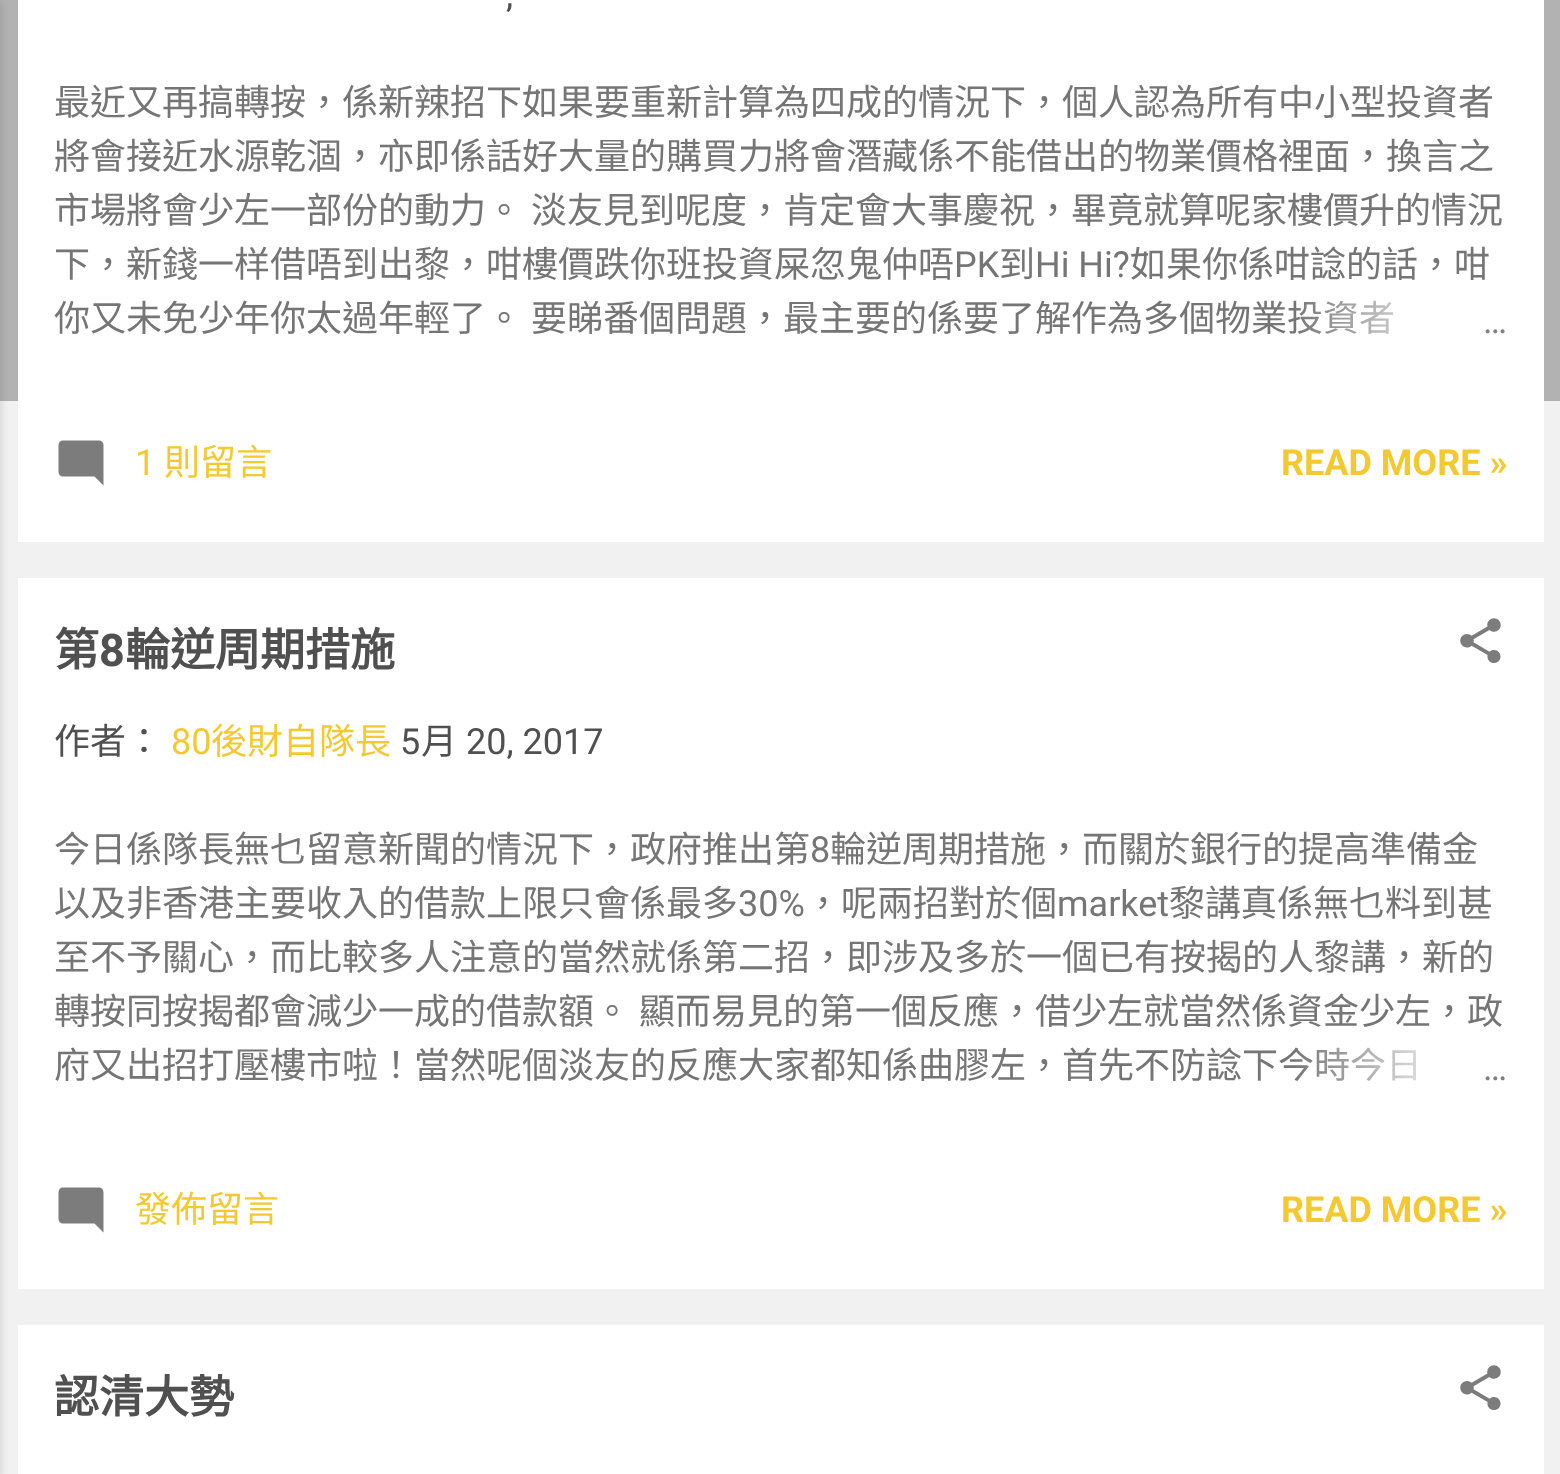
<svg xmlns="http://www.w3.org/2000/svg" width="1560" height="1474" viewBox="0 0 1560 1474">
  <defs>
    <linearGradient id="g1" gradientUnits="userSpaceOnUse" x1="1508" y1="320" x2="1292" y2="320"><stop offset="0" stop-color="rgb(255,255,255)"/><stop offset="0.2" stop-color="rgb(255,255,255)"/><stop offset="1" stop-color="rgb(255,255,255)" stop-opacity="0"/></linearGradient>
    <linearGradient id="g2" gradientUnits="userSpaceOnUse" x1="1508" y1="1067" x2="1292" y2="1067"><stop offset="0" stop-color="rgb(255,255,255)"/><stop offset="0.2" stop-color="rgb(255,255,255)"/><stop offset="1" stop-color="rgb(255,255,255)" stop-opacity="0"/></linearGradient>
  </defs>
  <rect width="100%" height="100%" fill="rgb(241,241,241)"/>
  <rect x="0" y="0" width="1560" height="401" fill="rgb(178,178,178)"/>
  <rect x="-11" y="2" width="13" height="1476" fill="rgba(0,0,0,0.1)" filter="blur(3.5px)"/>
  <rect x="18" y="0" width="1526" height="542" fill="rgb(255,255,255)"/>
  <text x="506" y="7" font-family="Roboto" font-size="36" fill="rgb(80,80,80)">,</text>
  <g font-family="Noto Sans CJK HK" font-size="36" fill="rgb(117,117,117)">
    <text>
      <tspan x="54" y="115">最近又再搞轉按，係新辣招下如果要重新計算為四成的情況下，個人認為所有中小型投資者</tspan>
      <tspan x="54" y="169">將會接近水源乾涸，亦即係話好大量的購買力將會潛藏係不能借出的物業價格裡面，換言之</tspan>
      <tspan x="54" y="223">市場將會少左一部份的動力。</tspan>
    </text>
    <text x="531" y="223">淡友見到呢度，肯定會大事慶祝，畢竟就算呢家樓價升的情況</text>
    <text x="54" y="277">下，新錢一样借唔到出黎，咁樓價跌你班投資屎忽鬼仲唔</text>
  </g>
  <text x="954" y="277" font-family="Roboto" font-size="36" fill="rgb(117,117,117)">PK</text>
  <text x="999" y="277" font-family="Noto Sans CJK HK" font-size="36" fill="rgb(117,117,117)">到</text>
  <text x="1035" y="277" font-family="Roboto" font-size="36" fill="rgb(117,117,117)">Hi Hi?</text>
  <g font-family="Noto Sans CJK HK" font-size="36" fill="rgb(117,117,117)">
    <text x="1130" y="277">如果你係咁諗的話，咁</text>
    <text x="54" y="331">你又未免少年你太過年輕了。</text>
    <text x="531" y="331">要睇番個問題，最主要的係要了解作為多個物業投資者</text>
  </g>
  <rect x="1296" y="300" width="97" height="34" fill="url(#g1)"/>
  <text x="1483" y="333" font-family="Roboto" font-size="36" fill="rgb(128,128,128)">…</text>
  <image x="58" y="440" width="46" height="46" href="pic1.png"/>
  <text x="135" y="475" font-family="Roboto" font-size="36" fill="rgb(244,200,49)">1</text>
  <text x="164" y="475" font-family="Noto Sans CJK HK" font-size="36" fill="rgb(244,200,49)">則留言</text>
  <text x="1281" y="475" font-family="Roboto" font-size="36" font-weight="bold" fill="rgb(244,200,49)">READ MORE »</text>
  <rect x="18" y="578" width="1526" height="711" fill="rgb(255,255,255)"/>
  <text x="54" y="666" font-family="Noto Sans CJK HK" font-size="45" font-weight="bold" fill="rgb(80,80,80)">第</text>
  <text x="99" y="666" font-family="Roboto" font-size="45" font-weight="bold" fill="rgb(80,80,80)">8</text>
  <text x="125" y="666" font-family="Noto Sans CJK HK" font-size="45" font-weight="bold" fill="rgb(80,80,80)">輪逆周期措施</text>
  <image x="1460" y="618" width="41" height="45" href="pic2.png"/>
  <text x="54" y="754" font-family="Noto Sans CJK HK" font-size="36" fill="rgb(80,80,80)">作者：</text>
  <text x="171" y="754" font-family="Roboto" font-size="36" fill="rgb(244,200,49)">80</text>
  <text x="211" y="754" font-family="Noto Sans CJK HK" font-size="36" fill="rgb(244,200,49)">後財自隊長</text>
  <text x="400" y="754" font-family="Roboto" font-size="36" fill="rgb(80,80,80)">5</text>
  <text x="421" y="754" font-family="Noto Sans CJK HK" font-size="36" fill="rgb(80,80,80)">月</text>
  <text x="466" y="754" font-family="Roboto" font-size="36" fill="rgb(80,80,80)">20, 2017</text>
  <text x="54" y="862" font-family="Noto Sans CJK HK" font-size="36" fill="rgb(117,117,117)">今日係隊長無乜留意新聞的情況下，政府推出第</text>
  <text x="810" y="862" font-family="Roboto" font-size="36" fill="rgb(117,117,117)">8</text>
  <g font-family="Noto Sans CJK HK" font-size="36" fill="rgb(117,117,117)">
    <text x="830" y="862">輪逆周期措施，而關於銀行的提高準備金</text>
    <text x="54" y="916">以及非香港主要收入的借款上限只會係最多</text>
  </g>
  <text x="738" y="916" font-family="Roboto" font-size="36" fill="rgb(117,117,117)">30%</text>
  <text x="805" y="916" font-family="Noto Sans CJK HK" font-size="36" fill="rgb(117,117,117)">，呢兩招對於個</text>
  <text x="1057" y="916" font-family="Roboto" font-size="36" fill="rgb(117,117,117)">market</text>
  <g font-family="Noto Sans CJK HK" font-size="36" fill="rgb(117,117,117)">
    <text x="1169" y="916">黎講真係無乜料到甚</text>
    <text>
      <tspan x="54" y="970">至不予關心，而比較多人注意的當然就係第二招，即涉及多於一個已有按揭的人黎講，新的</tspan>
      <tspan x="54" y="1024">轉按同按揭都會減少一成的借款額。</tspan>
    </text>
    <text x="639" y="1024">顯而易見的第一個反應，借少左就當然係資金少左，政</text>
    <text x="54" y="1078">府又出招打壓樓市啦！當然呢個淡友的反應大家都知係曲膠左，首先不防諗下今時今日</text>
  </g>
  <rect x="1296" y="1047" width="120" height="34" fill="url(#g2)"/>
  <text x="1483" y="1080" font-family="Roboto" font-size="36" fill="rgb(128,128,128)">…</text>
  <image x="58" y="1187" width="46" height="46" href="pic1.png"/>
  <text x="135" y="1222" font-family="Noto Sans CJK HK" font-size="36" fill="rgb(244,200,49)">發佈留言</text>
  <text x="1281" y="1222" font-family="Roboto" font-size="36" font-weight="bold" fill="rgb(244,200,49)">READ MORE »</text>
  <rect x="18" y="1325" width="1526" height="149" fill="rgb(255,255,255)"/>
  <text x="54" y="1413" font-family="Noto Sans CJK HK" font-size="45" font-weight="bold" fill="rgb(80,80,80)">認清大勢</text>
  <image x="1460" y="1365" width="41" height="45" href="pic2.png"/>
</svg>
